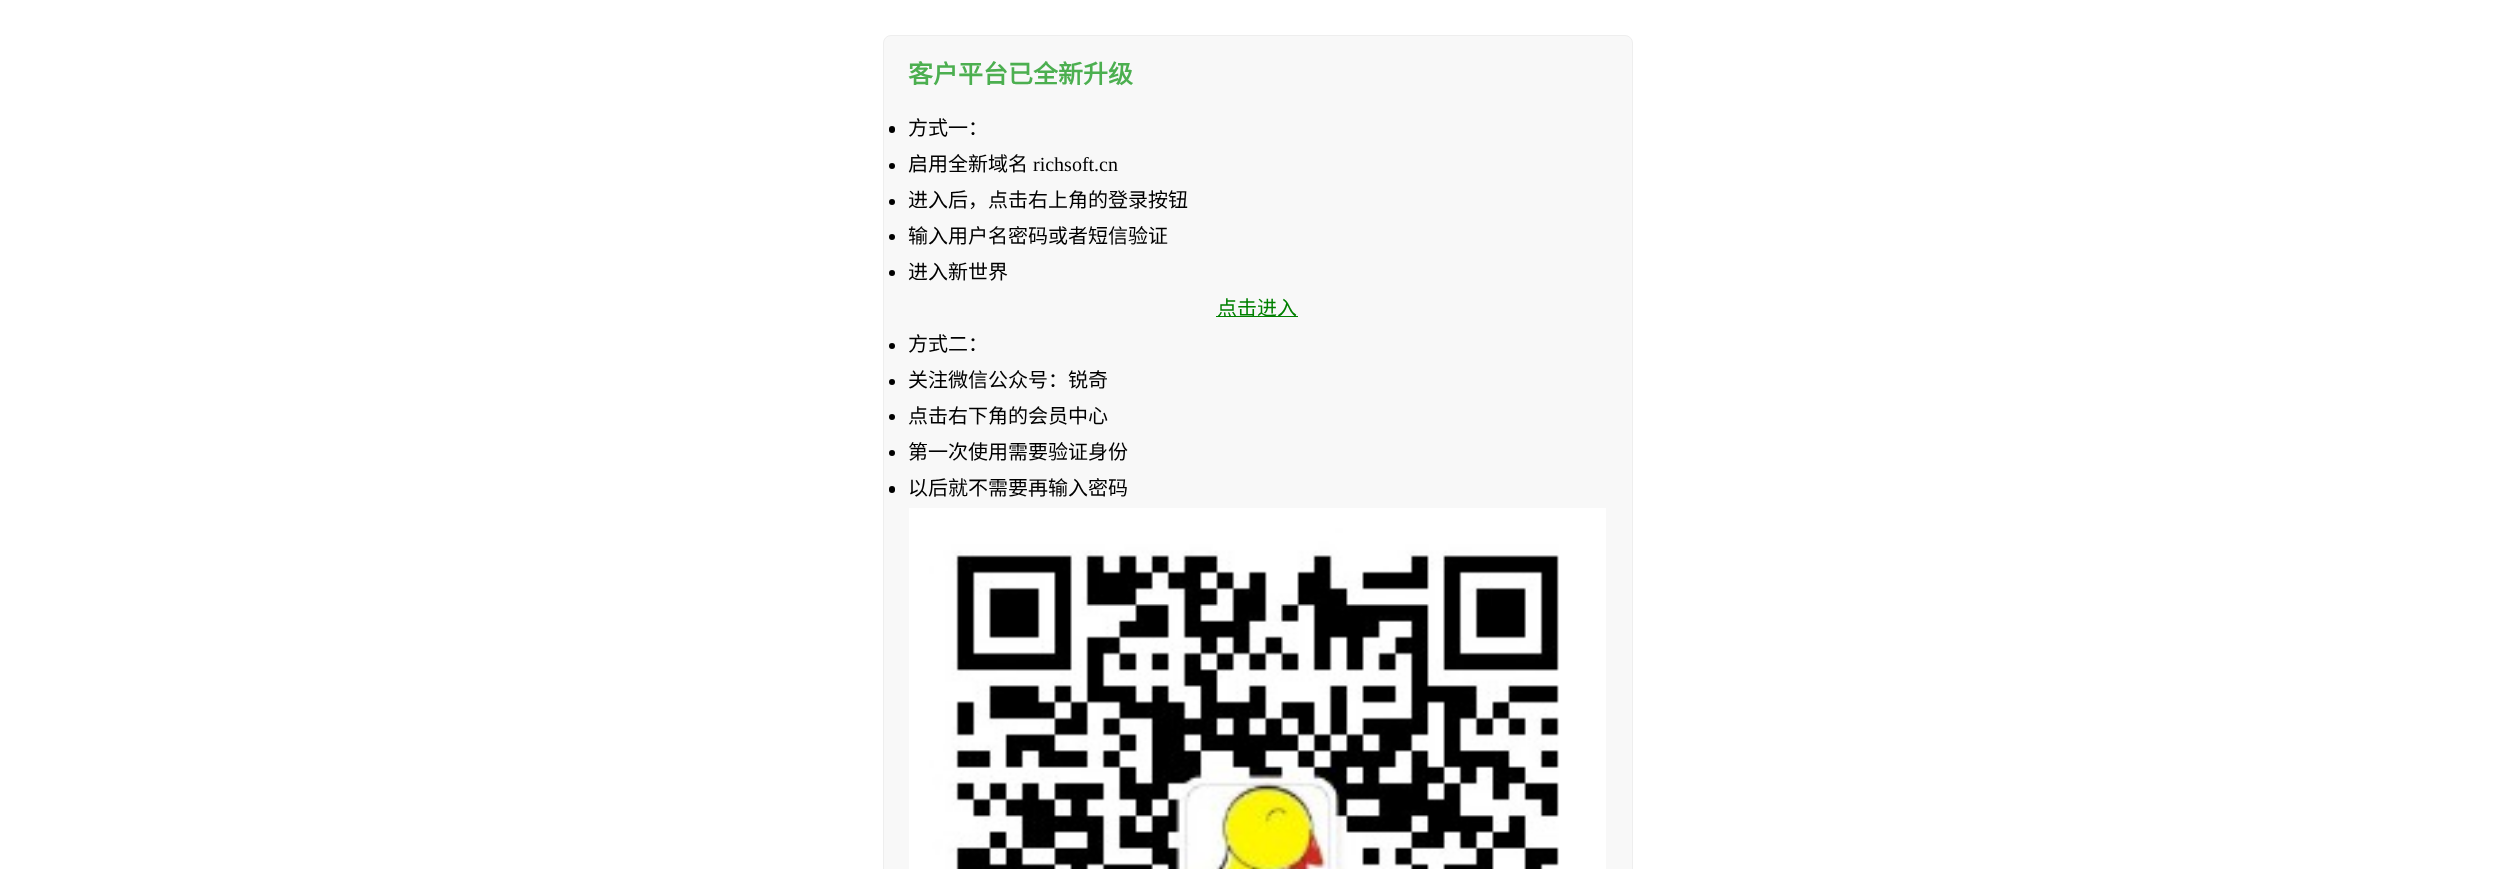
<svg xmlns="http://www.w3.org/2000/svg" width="2513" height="869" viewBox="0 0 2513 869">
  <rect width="100%" height="100%" fill="rgb(255,255,255)"/>
  <rect x="883.5" y="35.5" width="749" height="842" rx="7.5" fill="rgb(248,248,248)" stroke="rgb(238,238,238)"/>
  <text x="908" y="83" font-family="Noto Sans CJK SC" font-size="25" font-weight="bold" fill="rgb(76,175,80)">客户平台已全新升级</text>
  <rect x="889" y="126" width="6" height="7" rx="3" fill="rgb(0,0,0)"/>
  <text x="908" y="135" font-family="Noto Sans CJK SC" font-size="20" fill="rgb(0,0,0)">方式一：</text>
  <circle cx="892" cy="166" r="3" fill="rgb(0,0,0)"/>
  <text x="908" y="171" font-family="Noto Sans CJK SC" font-size="20" fill="rgb(0,0,0)">启用全新域名</text>
  <text x="1033" y="171" font-family="Liberation Serif" font-size="20" fill="rgb(0,0,0)">richsoft.cn</text>
  <circle cx="892" cy="202" r="3" fill="rgb(0,0,0)"/>
  <text x="908" y="207" font-family="Noto Sans CJK SC" font-size="20" fill="rgb(0,0,0)">进入后，点击右上角的登录按钮</text>
  <circle cx="892" cy="237" r="3" fill="rgb(0,0,0)"/>
  <text x="908" y="243" font-family="Noto Sans CJK SC" font-size="20" fill="rgb(0,0,0)">输入用户名密码或者短信验证</text>
  <circle cx="892" cy="273" r="3" fill="rgb(0,0,0)"/>
  <text x="908" y="279" font-family="Noto Sans CJK SC" font-size="20" fill="rgb(0,0,0)">进入新世界</text>
  <rect x="1216" y="316" width="82" height="1" fill="rgb(0,128,0)"/>
  <text x="1217" y="315" font-family="Noto Sans CJK SC" font-size="20" fill="rgb(0,128,0)">点击进入</text>
  <circle cx="892" cy="346" r="3" fill="rgb(0,0,0)"/>
  <text x="908" y="351" font-family="Noto Sans CJK SC" font-size="20" fill="rgb(0,0,0)">方式二：</text>
  <circle cx="892" cy="382" r="3" fill="rgb(0,0,0)"/>
  <text x="908" y="387" font-family="Noto Sans CJK SC" font-size="20" fill="rgb(0,0,0)">关注微信公众号：锐奇</text>
  <circle cx="892" cy="417" r="3" fill="rgb(0,0,0)"/>
  <text x="908" y="423" font-family="Noto Sans CJK SC" font-size="20" fill="rgb(0,0,0)">点击右下角的会员中心</text>
  <circle cx="892" cy="453" r="3" fill="rgb(0,0,0)"/>
  <text x="908" y="459" font-family="Noto Sans CJK SC" font-size="20" fill="rgb(0,0,0)">第一次使用需要验证身份</text>
  <rect x="889" y="486" width="6" height="7" rx="3" fill="rgb(0,0,0)"/>
  <text x="908" y="495" font-family="Noto Sans CJK SC" font-size="20" fill="rgb(0,0,0)">以后就不需要再输入密码</text>
  <image x="909" y="508" width="697" height="361" href="pic1.png"/>
</svg>
